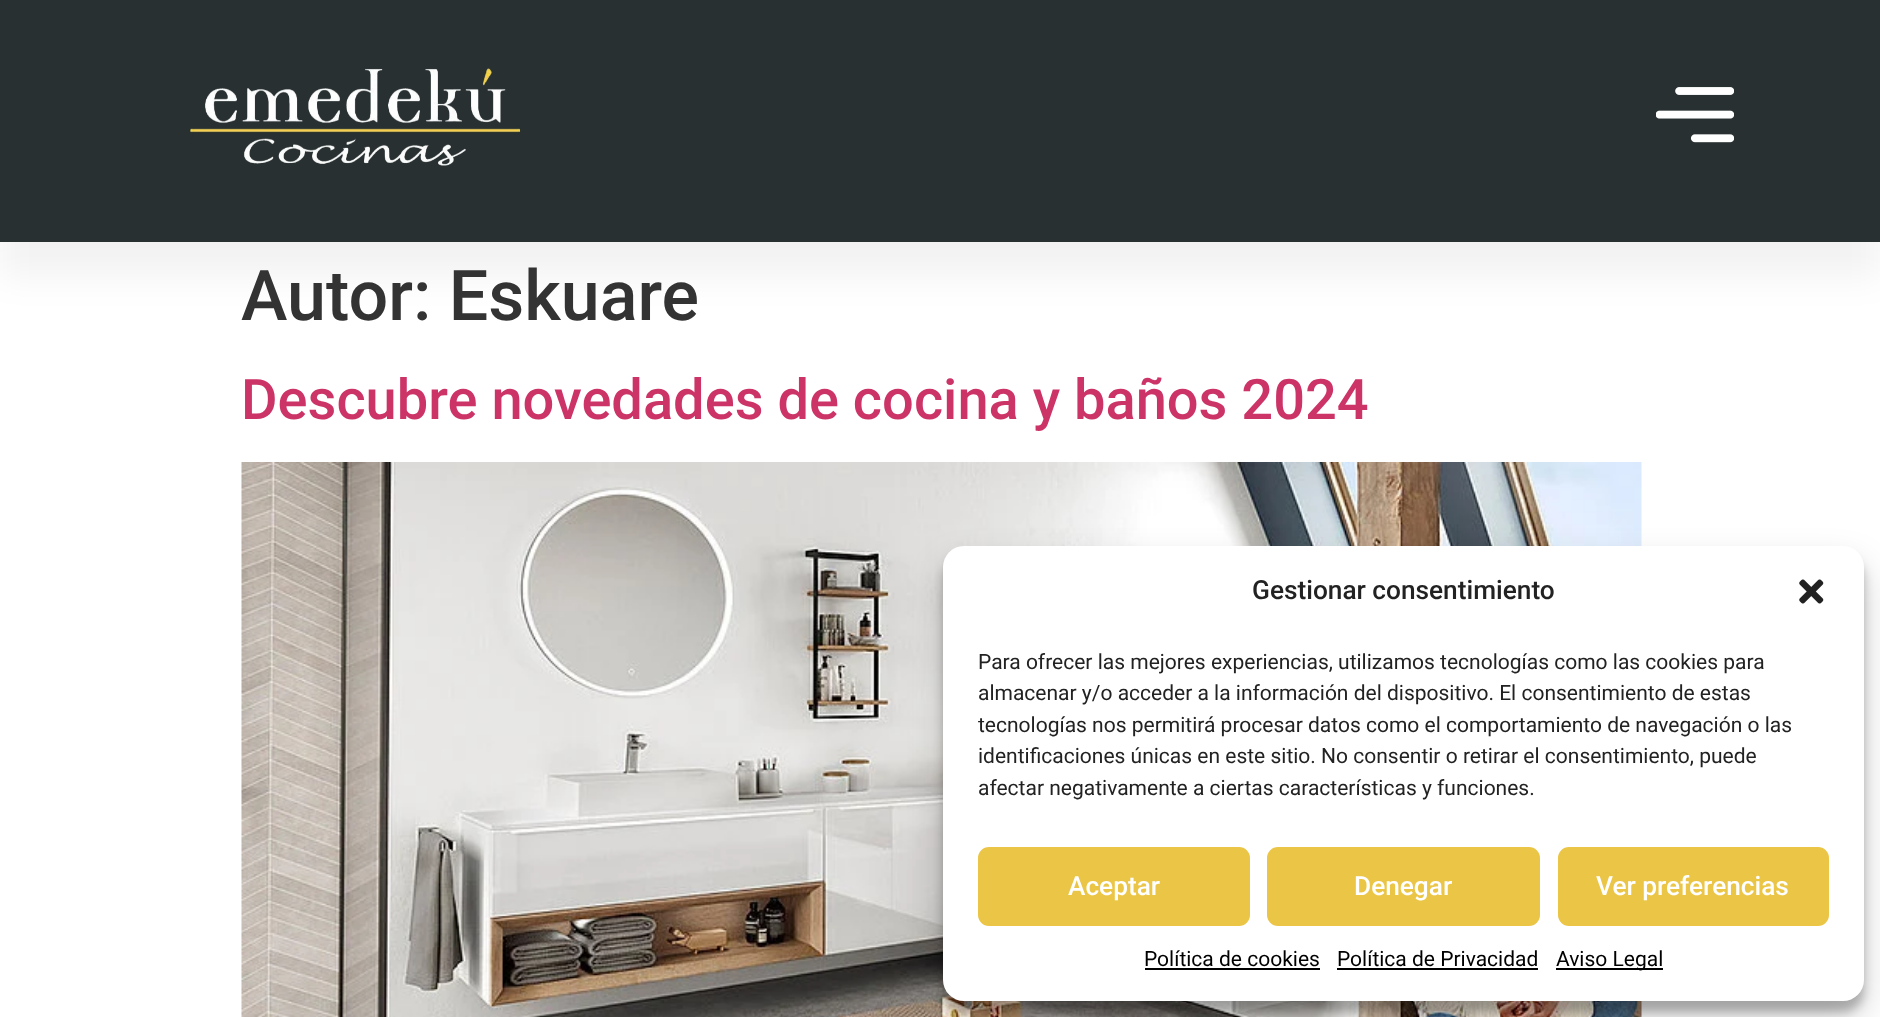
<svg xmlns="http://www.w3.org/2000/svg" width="1880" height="1017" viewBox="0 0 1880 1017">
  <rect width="100%" height="100%" fill="rgb(255,255,255)"/>
  <rect x="0" y="35" width="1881" height="242" fill="rgba(0,0,0,0.05)" filter="blur(17.5px)"/>
  <rect x="0" y="0" width="1880" height="242" fill="rgb(40,48,50)"/>
  <image x="189" y="68" width="332" height="98" href="pic1.png"/>
  <image x="1656" y="87" width="78" height="56" href="pic2.png"/>
  <text x="241" y="320" font-family="Roboto" font-size="70" font-weight="500" fill="rgb(51,51,51)">Autor: Eskuare</text>
  <text x="241" y="419" font-family="Roboto" font-size="56" font-weight="500" fill="rgb(204,51,102)">Descubre novedades de cocina y baños 2024</text>
  <image x="241" y="462" width="1401" height="555" href="pic3.png"/>
  <rect x="943" y="557" width="921" height="455" rx="21" fill="rgba(0,0,0,0.23)" filter="blur(5px)"/>
  <rect x="943" y="564" width="921" height="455" rx="21" fill="rgba(0,0,0,0.19)" filter="blur(17.5px)"/>
  <rect x="943" y="546" width="921" height="455" rx="21" fill="rgb(255,255,255)"/>
  <text x="1252" y="599" font-family="Roboto" font-size="26.25" font-weight="500" fill="rgb(34,34,34)">Gestionar consentimiento</text>
  <image x="1799" y="579" width="25" height="25" href="pic4.png"/>
  <g font-family="Roboto" font-size="21" fill="rgb(34,34,34)">
    <text>
      <tspan x="978" y="669">Para ofrecer las mejores experiencias, utilizamos tecnologías como las cookies para</tspan>
      <tspan x="978" y="700">almacenar y/o acceder a la información del dispositivo. El consentimiento de estas</tspan>
      <tspan x="978" y="732">tecnologías nos permitirá procesar datos como el comportamiento de navegación o las</tspan>
      <tspan x="978" y="763">identificaciones únicas en este sitio. No consentir o retirar el consentimiento, puede</tspan>
      <tspan x="978" y="795">afectar negativamente a ciertas características y funciones.</tspan>
    </text>
  </g>
  <rect x="979" y="848" width="270" height="77" rx="10" fill="rgb(235,197,70)" stroke="rgb(235,197,70)" stroke-width="2"/>
  <text x="1068" y="895" font-family="Roboto" font-size="26.25" font-weight="500" fill="rgb(255,255,255)">Aceptar</text>
  <rect x="1268" y="848" width="271" height="77" rx="10" fill="rgb(235,197,70)" stroke="rgb(235,197,70)" stroke-width="2"/>
  <text x="1354" y="895" font-family="Roboto" font-size="26.25" font-weight="500" fill="rgb(255,255,255)">Denegar</text>
  <rect x="1559" y="848" width="269" height="77" rx="10" fill="rgb(235,197,70)" stroke="rgb(235,197,70)" stroke-width="2"/>
  <text x="1596" y="895" font-family="Roboto" font-size="26.25" font-weight="500" fill="rgb(255,255,255)">Ver preferencias</text>
  <text x="1144" y="966" font-family="Roboto" font-size="21" fill="rgb(0,0,0)">Política de cookies</text>
  <rect x="1145" y="968" width="175" height="2" fill="rgb(0,0,0)"/>
  <text x="1337" y="966" font-family="Roboto" font-size="21" fill="rgb(0,0,0)">Política de Privacidad</text>
  <rect x="1337" y="968" width="201" height="2" fill="rgb(0,0,0)"/>
  <rect x="1556" y="968" width="107" height="2" fill="rgb(0,0,0)"/>
  <text x="1556" y="966" font-family="Roboto" font-size="21" fill="rgb(0,0,0)">Aviso Legal</text>
</svg>
